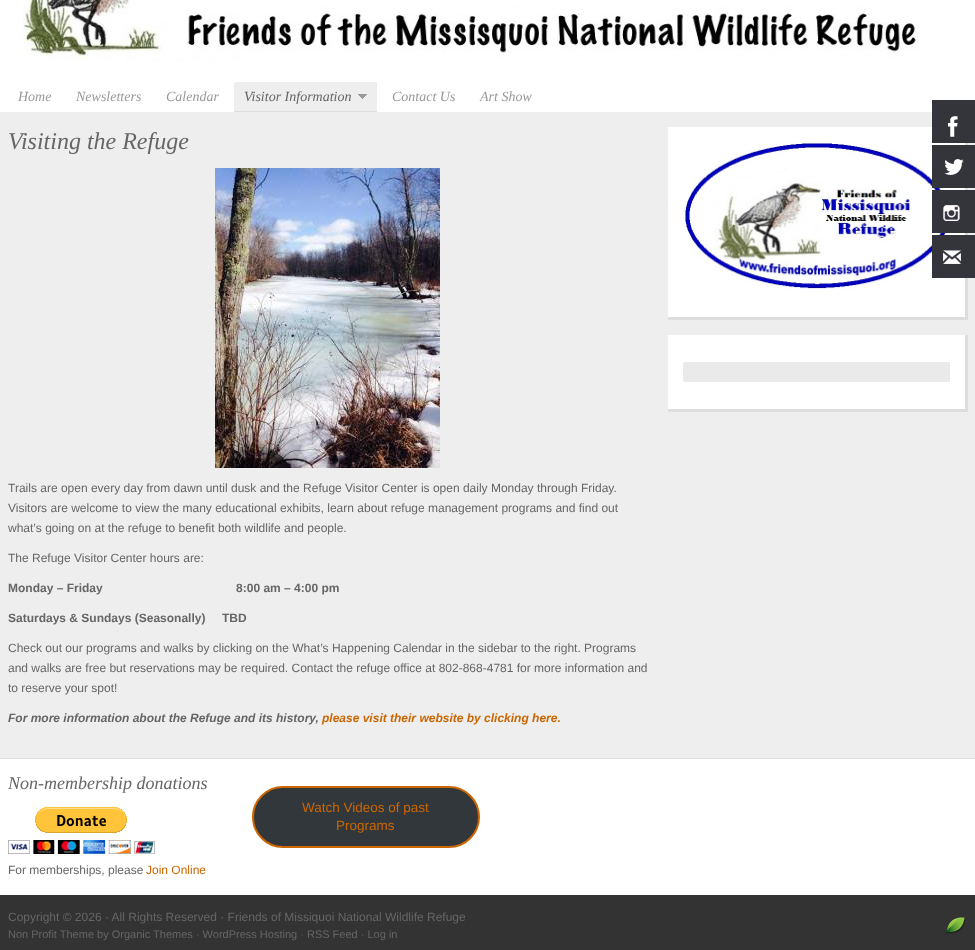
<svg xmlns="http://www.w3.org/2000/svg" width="975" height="950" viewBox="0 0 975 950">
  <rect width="100%" height="100%" fill="rgb(238,238,238)"/>
  <rect x="0" y="0" width="975" height="112" fill="rgb(255,255,255)"/>
  <image x="23" y="0" width="896" height="62" href="pic1.png"/>
  <g font-family="Liberation Serif" font-size="14" font-style="italic" fill="rgb(153,153,153)">
    <text x="18" y="101">Home</text>
    <text x="76" y="101">Newsletters</text>
    <text x="166" y="101">Calendar</text>
  </g>
  <rect x="234" y="82" width="143" height="29" fill="rgb(238,238,238)"/>
  <rect x="234" y="111" width="143" height="1" fill="rgb(221,221,221)"/>
  <text x="244" y="101" font-family="Liberation Serif" font-size="14" font-style="italic" fill="rgb(102,102,102)">Visitor Information</text>
  <image x="358" y="94" width="9" height="5" href="pic2.png"/>
  <g font-family="Liberation Serif" font-size="14" font-style="italic" fill="rgb(153,153,153)">
    <text x="392" y="101">Contact Us</text>
    <text x="480" y="101">Art Show</text>
  </g>
  <text x="8" y="149" font-family="Liberation Serif" font-size="24" font-style="italic" fill="rgb(102,102,102)">Visiting the Refuge</text>
  <image x="215" y="168" width="225" height="300" href="pic3.png"/>
  <g font-family="Liberation Sans" font-size="12" fill="rgb(102,102,102)">
    <text>
      <tspan x="8" y="492">Trails are open every day from dawn until dusk and the Refuge Visitor Center is open daily Monday through Friday.</tspan>
      <tspan x="8" y="512">Visitors are welcome to view the many educational exhibits, learn about refuge management programs and find out</tspan>
      <tspan x="8" y="532">what’s going on at the refuge to benefit both wildlife and people.</tspan>
    </text>
    <text x="8" y="562">The Refuge Visitor Center hours are:</text>
  </g>
  <g font-family="Liberation Sans" font-size="12" font-weight="bold" fill="rgb(102,102,102)">
    <text x="8" y="592" xml:space="preserve">Monday – Friday                                        8:00 am – 4:00 pm</text>
    <text x="8" y="622">Saturdays &amp; Sundays (Seasonally)</text>
    <text x="222" y="622">TBD</text>
  </g>
  <g font-family="Liberation Sans" font-size="12" fill="rgb(102,102,102)">
    <text>
      <tspan x="8" y="652">Check out our programs and walks by clicking on the What’s Happening Calendar in the sidebar to the right. Programs</tspan>
      <tspan x="8" y="672">and walks are free but reservations may be required. Contact the refuge office at 802-868-4781 for more information and</tspan>
      <tspan x="8" y="692">to reserve your spot!</tspan>
    </text>
  </g>
  <text x="8" y="722" font-family="Liberation Sans" font-size="12" font-weight="bold" font-style="italic" fill="rgb(102,102,102)">For more information about the Refuge and its history,</text>
  <text x="322" y="722" font-family="Liberation Sans" font-size="12" font-weight="bold" font-style="italic" fill="rgb(204,102,0)">please visit their website by clicking here.</text>
  <rect x="668" y="127" width="297" height="190" fill="rgb(255,255,255)"/>
  <rect x="965" y="143" width="3" height="177" fill="rgb(221,221,221)"/>
  <rect x="668" y="317" width="300" height="3" fill="rgb(221,221,221)"/>
  <image x="683" y="142" width="267" height="148" href="pic4.png"/>
  <rect x="668" y="335" width="297" height="74" fill="rgb(255,255,255)"/>
  <rect x="965" y="335" width="3" height="77" fill="rgb(221,221,221)"/>
  <rect x="668" y="409" width="300" height="3" fill="rgb(221,221,221)"/>
  <rect x="683" y="362" width="267" height="20" fill="rgb(234,234,234)"/>
  <rect x="932" y="100" width="43" height="43" fill="rgb(51,53,59)"/>
  <image x="948" y="116" width="10" height="21" href="pic5.png"/>
  <rect x="932" y="145" width="43" height="43" fill="rgb(51,53,59)"/>
  <image x="944" y="159" width="20" height="16" href="pic6.png"/>
  <rect x="932" y="190" width="43" height="43" fill="rgb(51,53,59)"/>
  <image x="943" y="205" width="17" height="16" href="pic7.png"/>
  <rect x="932" y="235" width="43" height="43" fill="rgb(51,53,59)"/>
  <image x="943" y="250" width="18" height="14" href="pic8.png"/>
  <rect x="0" y="759" width="975" height="136" fill="rgb(255,255,255)"/>
  <rect x="0" y="758" width="975" height="1" fill="rgb(221,221,221)"/>
  <text x="8" y="789" font-family="Liberation Serif" font-size="18" font-style="italic" fill="rgb(102,102,102)">Non-membership donations</text>
  <image x="8" y="807" width="147" height="47" href="pic9.png"/>
  <text x="8" y="874" font-family="Liberation Sans" font-size="12" fill="rgb(102,102,102)">For memberships, please</text>
  <text x="146" y="874" font-family="Liberation Sans" font-size="12" fill="rgb(204,102,0)">Join Online</text>
  <rect x="253" y="787" width="226" height="60" rx="30" fill="rgb(50,55,60)" stroke="rgb(204,102,0)" stroke-width="2"/>
  <g font-family="Liberation Sans" font-size="13.5" fill="rgb(204,102,0)">
    <text x="302" y="812">Watch Videos of past</text>
    <text x="336" y="830">Programs</text>
  </g>
  <rect x="0" y="895" width="975" height="55" fill="rgb(51,51,51)"/>
  <text x="8" y="921" font-family="Liberation Sans" font-size="12" fill="rgb(102,102,102)">Copyright © 2026 · All Rights Reserved · Friends of Missiquoi National Wildlife Refuge</text>
  <text x="8" y="938" font-family="Liberation Sans" font-size="11" fill="rgb(102,102,102)">Non Profit Theme by Organic Themes · WordPress Hosting · RSS Feed · Log in</text>
  <image x="945" y="917" width="21" height="18" href="pic10.png"/>
</svg>
